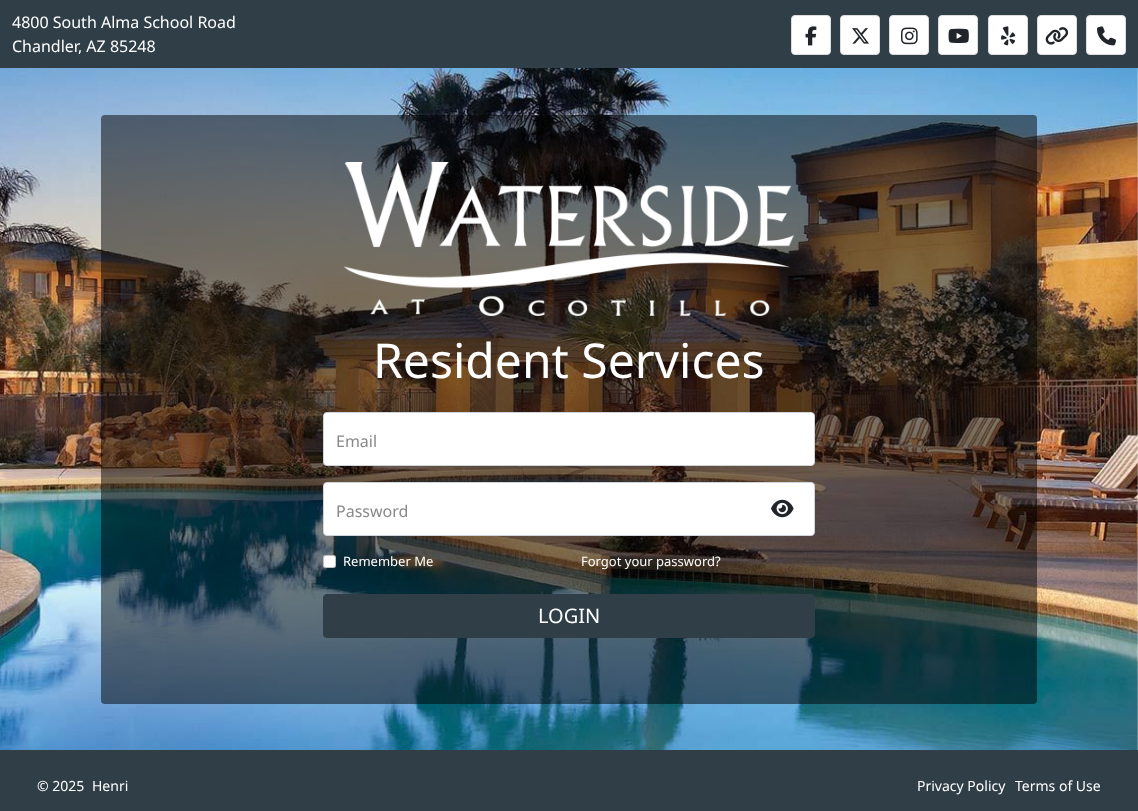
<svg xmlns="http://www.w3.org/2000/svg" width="1138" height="811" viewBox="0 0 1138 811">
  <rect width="100%" height="100%" fill="rgb(255,255,255)"/>
  <image x="0" y="68" width="1138" height="682" href="pic1.png"/>
  <rect x="0" y="0" width="1138" height="68" fill="rgb(48,62,72)"/>
  <g font-family="Noto Sans" font-size="16" fill="rgb(255,255,255)">
    <text>
      <tspan x="12" y="28">4800 South Alma School Road</tspan>
      <tspan x="12" y="52">Chandler, AZ 85248</tspan>
    </text>
  </g>
  <rect x="791.5" y="15.5" width="39" height="39" rx="3.5" fill="rgb(255,255,255)" stroke="rgb(221,221,221)"/>
  <image x="805" y="26" width="12" height="20" href="pic2.png"/>
  <rect x="840.5" y="15.5" width="39" height="39" rx="3.5" fill="rgb(255,255,255)" stroke="rgb(221,221,221)"/>
  <image x="852" y="28" width="17" height="16" href="pic3.png"/>
  <rect x="889.5" y="15.5" width="39" height="39" rx="3.5" fill="rgb(255,255,255)" stroke="rgb(221,221,221)"/>
  <image x="901" y="27" width="17" height="18" href="pic4.png"/>
  <rect x="938.5" y="15.5" width="39" height="39" rx="3.5" fill="rgb(255,255,255)" stroke="rgb(221,221,221)"/>
  <image x="948" y="28" width="21" height="15" href="pic5.png"/>
  <rect x="988.5" y="15.5" width="39" height="39" rx="3.5" fill="rgb(255,255,255)" stroke="rgb(221,221,221)"/>
  <image x="1001" y="26" width="15" height="20" href="pic6.png"/>
  <rect x="1037.5" y="15.5" width="39" height="39" rx="3.5" fill="rgb(255,255,255)" stroke="rgb(221,221,221)"/>
  <image x="1045" y="27" width="24" height="18" href="pic7.png"/>
  <rect x="1086.5" y="15.5" width="39" height="39" rx="3.5" fill="rgb(255,255,255)" stroke="rgb(221,221,221)"/>
  <image x="1097" y="26" width="19" height="20" href="pic8.png"/>
  <rect x="101" y="115" width="936" height="589" rx="4" fill="rgba(0,0,0,0.5)"/>
  <image x="344" y="162" width="450" height="154" href="pic9.png"/>
  <text x="373" y="378" font-family="Noto Sans" font-size="48" fill="rgb(255,255,255)">Resident Services</text>
  <rect x="323.5" y="412.5" width="491" height="53" rx="3.5" fill="rgb(255,255,255)" stroke="rgb(206,212,218)"/>
  <text x="336" y="447" font-family="Noto Sans" font-size="16" fill="rgb(136,136,136)">Email</text>
  <rect x="323.5" y="482.5" width="491" height="53" rx="3.5" fill="rgb(255,255,255)" stroke="rgb(206,212,218)"/>
  <text x="336" y="517" font-family="Noto Sans" font-size="16" fill="rgb(136,136,136)">Password</text>
  <image x="771" y="499" width="23" height="19" href="pic10.png"/>
  <rect x="323" y="555" width="13" height="13" rx="3" fill="rgb(255,255,255)"/>
  <rect x="323.5" y="555.5" width="12" height="12" rx="2.5" fill="none" stroke="rgba(0,0,0,0.25)"/>
  <g font-family="Noto Sans" font-size="13" fill="rgb(255,255,255)">
    <text x="343" y="566">Remember Me</text>
    <text x="581" y="566">Forgot your password?</text>
  </g>
  <rect x="323.5" y="594.5" width="491" height="43" rx="3.5" fill="rgb(48,62,72)" stroke="rgb(48,62,72)"/>
  <text x="538" y="623" font-family="Noto Sans" font-size="20" fill="rgb(255,255,255)">LOGIN</text>
  <rect x="0" y="750" width="1138" height="61" fill="rgb(48,62,72)"/>
  <g font-family="Noto Sans" font-size="14" fill="rgb(255,255,255)">
    <text x="37" y="791">© 2025</text>
    <text x="92" y="791">Henri</text>
    <text x="917" y="791">Privacy Policy</text>
    <text x="1015" y="791">Terms of Use</text>
  </g>
</svg>
